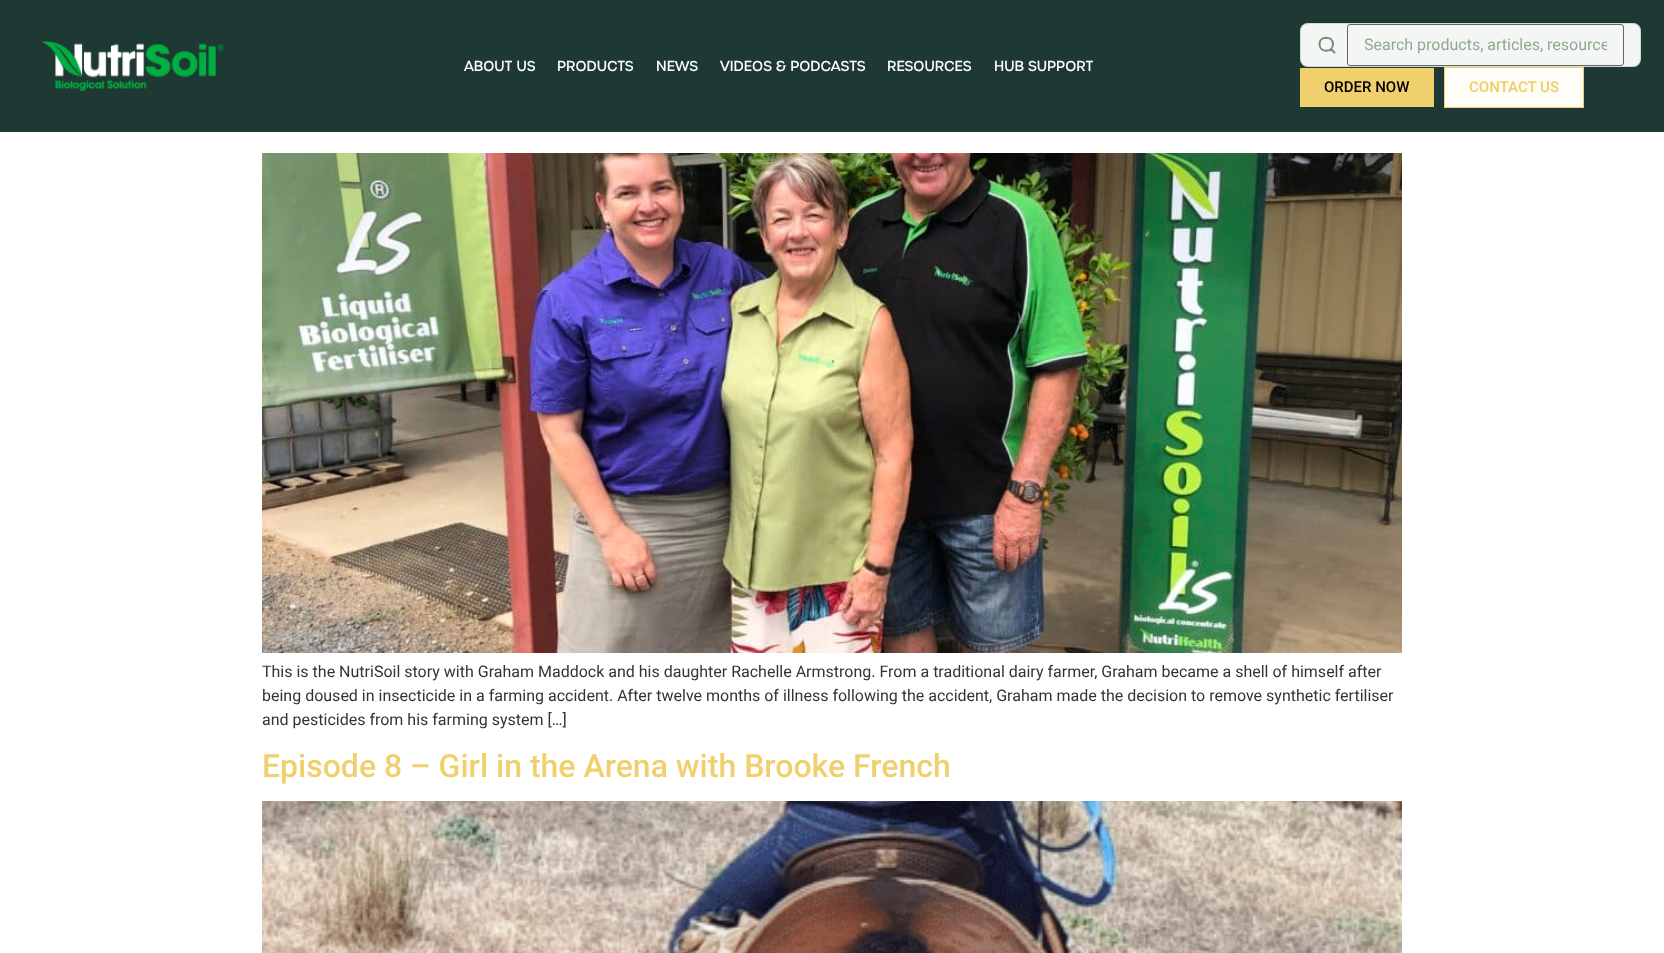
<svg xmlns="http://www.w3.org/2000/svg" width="1664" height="953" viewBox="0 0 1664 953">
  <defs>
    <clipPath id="clip1"><rect x="1364" y="35" width="243" height="19"/></clipPath>
  </defs>
  <rect width="100%" height="100%" fill="rgb(255,255,255)"/>
  <rect x="0" y="0" width="1664" height="132" fill="rgb(30,56,52)"/>
  <image x="42" y="40" width="183" height="52" href="pic1.png"/>
  <g font-family="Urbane" font-size="14" font-weight="500" fill="rgb(255,255,255)">
    <text x="464" y="71">ABOUT US</text>
    <text x="557" y="71">PRODUCTS</text>
    <text x="656" y="71">NEWS</text>
    <text x="720" y="71">VIDEOS &amp; PODCASTS</text>
    <text x="887" y="71">RESOURCES</text>
    <text x="994" y="71">HUB SUPPORT</text>
  </g>
  <rect x="1300" y="23" width="341" height="44" rx="8" fill="rgb(244,245,245)"/>
  <rect x="1300.5" y="23.5" width="340" height="43" rx="7.5" fill="none" stroke="rgba(72,112,72,0.2)"/>
  <path d="M1334.5 52.5L1331 49M1333 44C1333 53 1319.5 53 1319.5 44C1319.5 35.5 1333 35.5 1333 44Z" fill="none" stroke="rgb(107,142,107)" stroke-width="2" stroke-linecap="round" stroke-linejoin="round"/>
  <rect x="1347.5" y="24.5" width="276" height="41" rx="2.5" fill="none" stroke="rgb(102,102,102)"/>
  <g clip-path="url(#clip1)">
    <text x="1364" y="50" font-family="Roboto" font-size="16" fill="rgb(143,169,143)">Search products, articles, resource</text>
  </g>
  <rect x="1300" y="68" width="134" height="39" fill="rgb(240,208,109)"/>
  <text x="1324" y="92" font-family="Roboto" font-size="15" font-weight="500" fill="rgb(0,0,0)">ORDER NOW</text>
  <rect x="1444.5" y="67.5" width="139" height="40" fill="rgb(255,253,247)" stroke="rgb(240,208,109)"/>
  <text x="1469" y="92" font-family="Roboto" font-size="15" font-weight="600" fill="rgb(240,208,109)">CONTACT US</text>
  <image x="262" y="153" width="1140" height="500" href="pic2.png"/>
  <g font-family="Roboto" font-size="16" fill="rgb(51,51,51)">
    <text>
      <tspan x="262" y="677">This is the NutriSoil story with Graham Maddock and his daughter Rachelle Armstrong. From a traditional dairy farmer, Graham became a shell of himself after</tspan>
      <tspan x="262" y="701">being doused in insecticide in a farming accident. After twelve months of illness following the accident, Graham made the decision to remove synthetic fertiliser</tspan>
      <tspan x="262" y="725">and pesticides from his farming system […]</tspan>
    </text>
  </g>
  <text x="262" y="777" font-family="Roboto" font-size="32" font-weight="500" fill="rgb(240,208,109)">Episode 8 – Girl in the Arena with Brooke French</text>
  <image x="262" y="801" width="1140" height="152" href="pic3.png"/>
</svg>
